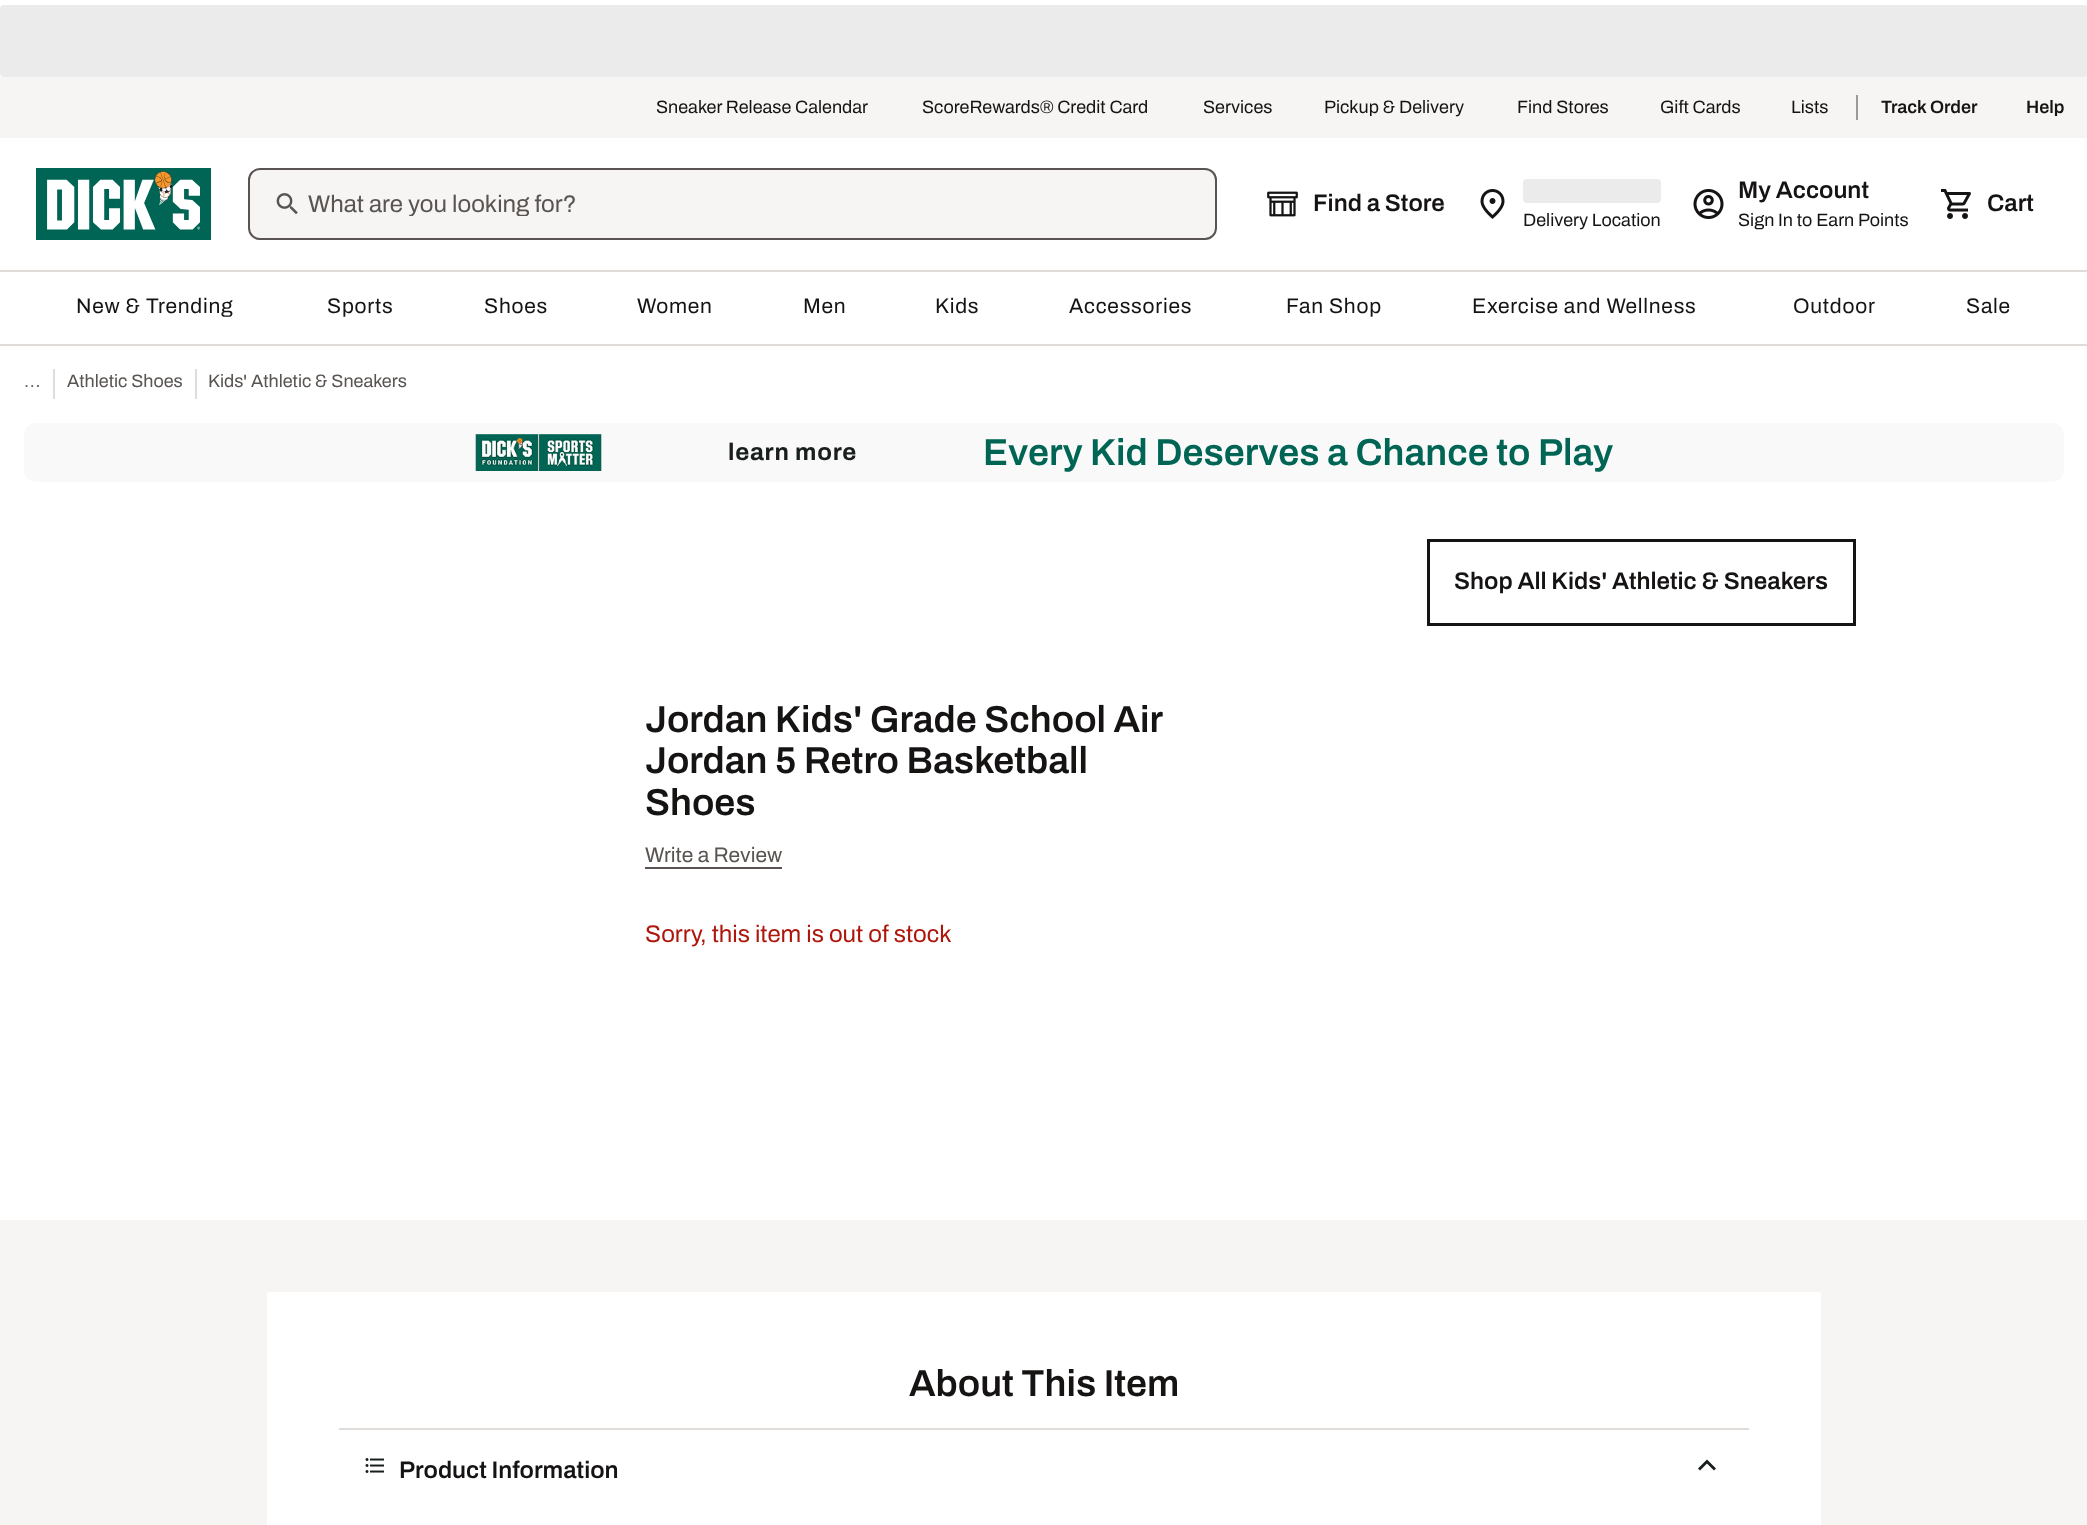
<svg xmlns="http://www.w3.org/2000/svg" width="2087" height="1525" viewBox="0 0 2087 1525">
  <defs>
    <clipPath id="clip1"><rect x="308" y="191" width="895" height="25"/></clipPath>
  </defs>
  <rect width="100%" height="100%" fill="rgb(255,255,255)"/>
  <rect x="0" y="5" width="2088" height="72" rx="4" fill="rgb(235,235,235)"/>
  <rect x="0" y="77" width="2087" height="61" fill="rgb(246,245,243)"/>
  <g font-family="Archivo" font-size="18" fill="rgb(22,19,19)">
    <text x="656" y="113">Sneaker Release Calendar</text>
    <text x="922" y="113">ScoreRewards® Credit Card</text>
    <text x="1203" y="113">Services</text>
    <text x="1324" y="113">Pickup &amp; Delivery</text>
    <text x="1517" y="113">Find Stores</text>
    <text x="1660" y="113">Gift Cards</text>
    <text x="1791" y="113">Lists</text>
  </g>
  <rect x="1856" y="95" width="2" height="25" fill="rgb(159,153,150)"/>
  <g font-family="Archivo" font-size="18" font-weight="600" fill="rgb(22,19,19)">
    <text x="1881" y="113">Track Order</text>
    <text x="2026" y="113">Help</text>
  </g>
  <rect x="0" y="270" width="2087" height="2" fill="rgb(224,220,217)"/>
  <image x="36" y="168" width="176" height="72" href="pic1.png"/>
  <rect x="249" y="169" width="967" height="70" rx="11" fill="rgb(246,245,243)" stroke="rgb(89,84,81)" stroke-width="2"/>
  <image x="276" y="193" width="22" height="22" href="pic2.png"/>
  <g clip-path="url(#clip1)">
    <text x="308" y="212" font-family="Archivo" font-size="24" fill="rgb(89,84,81)">What are you looking for?</text>
  </g>
  <image x="1267" y="191" width="31" height="26" href="pic3.png"/>
  <text x="1313" y="211" font-family="Archivo" font-size="24" font-weight="600" fill="rgb(22,19,19)">Find a Store</text>
  <image x="1693" y="189" width="31" height="30" href="pic4.png"/>
  <text x="1738" y="198" font-family="Archivo" font-size="24" font-weight="600" fill="rgb(22,19,19)">My Account</text>
  <text x="1738" y="226" font-family="Archivo" font-size="18" fill="rgb(22,19,19)">Sign In to Earn Points</text>
  <image x="1941" y="189" width="30" height="30" href="pic5.png"/>
  <text x="1987" y="211" font-family="Archivo" font-size="24" font-weight="600" fill="rgb(22,19,19)">Cart</text>
  <image x="1480" y="189" width="25" height="30" href="pic6.png"/>
  <rect x="1523" y="179" width="138" height="24" rx="4" fill="rgb(235,235,235)"/>
  <text x="1523" y="226" font-family="Archivo" font-size="18" fill="rgb(22,19,19)">Delivery Location</text>
  <rect x="0" y="344" width="2087" height="2" fill="rgb(224,220,217)"/>
  <g font-family="Archivo" font-size="21" letter-spacing="0.75" fill="rgb(22,19,19)">
    <text x="76" y="313">New &amp; Trending</text>
    <text x="327" y="313">Sports</text>
    <text x="484" y="313">Shoes</text>
    <text x="637" y="313">Women</text>
    <text x="803" y="313">Men</text>
    <text x="935" y="313">Kids</text>
    <text x="1069" y="313">Accessories</text>
    <text x="1286" y="313">Fan Shop</text>
    <text x="1472" y="313">Exercise and Wellness</text>
    <text x="1793" y="313">Outdoor</text>
    <text x="1966" y="313">Sale</text>
  </g>
  <text x="24" y="387" font-family="Archivo" font-size="18" letter-spacing="0.75" fill="rgb(94,98,96)">...</text>
  <rect x="53" y="369" width="2" height="30" fill="rgb(224,220,217)"/>
  <text x="67" y="387" font-family="Archivo" font-size="18" fill="rgb(89,84,81)">Athletic Shoes</text>
  <rect x="195" y="369" width="2" height="30" fill="rgb(224,220,217)"/>
  <text x="208" y="387" font-family="Archivo" font-size="18" fill="rgb(89,84,81)">Kids' Athletic &amp; Sneakers</text>
  <rect x="24" y="423" width="2040" height="59" rx="12" fill="rgb(249,249,249)"/>
  <image x="475" y="434" width="127" height="37" href="pic7.png"/>
  <text x="728" y="460" font-family="Archivo" font-size="24" font-weight="bold" letter-spacing="0.75" fill="rgb(25,31,28)">learn more</text>
  <text x="983" y="465" font-family="Archivo" font-size="37.5" font-weight="600" fill="rgb(0,101,84)">Every Kid Deserves a Chance to Play</text>
  <rect x="1428.5" y="540.5" width="426" height="84" fill="none" stroke="rgb(22,19,19)" stroke-width="3"/>
  <text x="1454" y="589" font-family="Archivo" font-size="24" font-weight="600" fill="rgb(22,19,19)">Shop All Kids' Athletic &amp; Sneakers</text>
  <g font-family="Archivo" font-size="37.5" font-weight="600" fill="rgb(22,19,19)">
    <text>
      <tspan x="645" y="732">Jordan Kids' Grade School Air</tspan>
      <tspan x="645" y="773">Jordan 5 Retro Basketball</tspan>
      <tspan x="645" y="815">Shoes</tspan>
    </text>
  </g>
  <text x="645" y="862" font-family="Archivo" font-size="21" fill="rgb(89,84,81)">Write a Review</text>
  <rect x="645" y="867" width="137" height="2" fill="rgb(89,84,81)"/>
  <text x="645" y="942" font-family="Archivo" font-size="24" fill="rgb(173,22,11)">Sorry, this item is out of stock</text>
  <rect x="0" y="1220" width="2087" height="305" fill="rgb(246,245,243)"/>
  <rect x="267" y="1292" width="1554" height="233" fill="rgb(255,255,255)"/>
  <text x="909" y="1396" font-family="Archivo" font-size="37.5" font-weight="600" fill="rgb(22,19,19)">About This Item</text>
  <rect x="339" y="1428" width="1410" height="2" fill="rgb(224,220,217)"/>
  <image x="365" y="1458" width="19" height="15" href="pic8.png"/>
  <text x="399" y="1478" font-family="Archivo" font-size="24" font-weight="600" fill="rgb(22,19,19)">Product Information</text>
  <path d="M1700 1470.5L1707 1463.5L1714 1470.5L1716 1468.5L1707 1459.5L1698 1468.5Z" fill="rgb(25,31,28)"/>
</svg>
